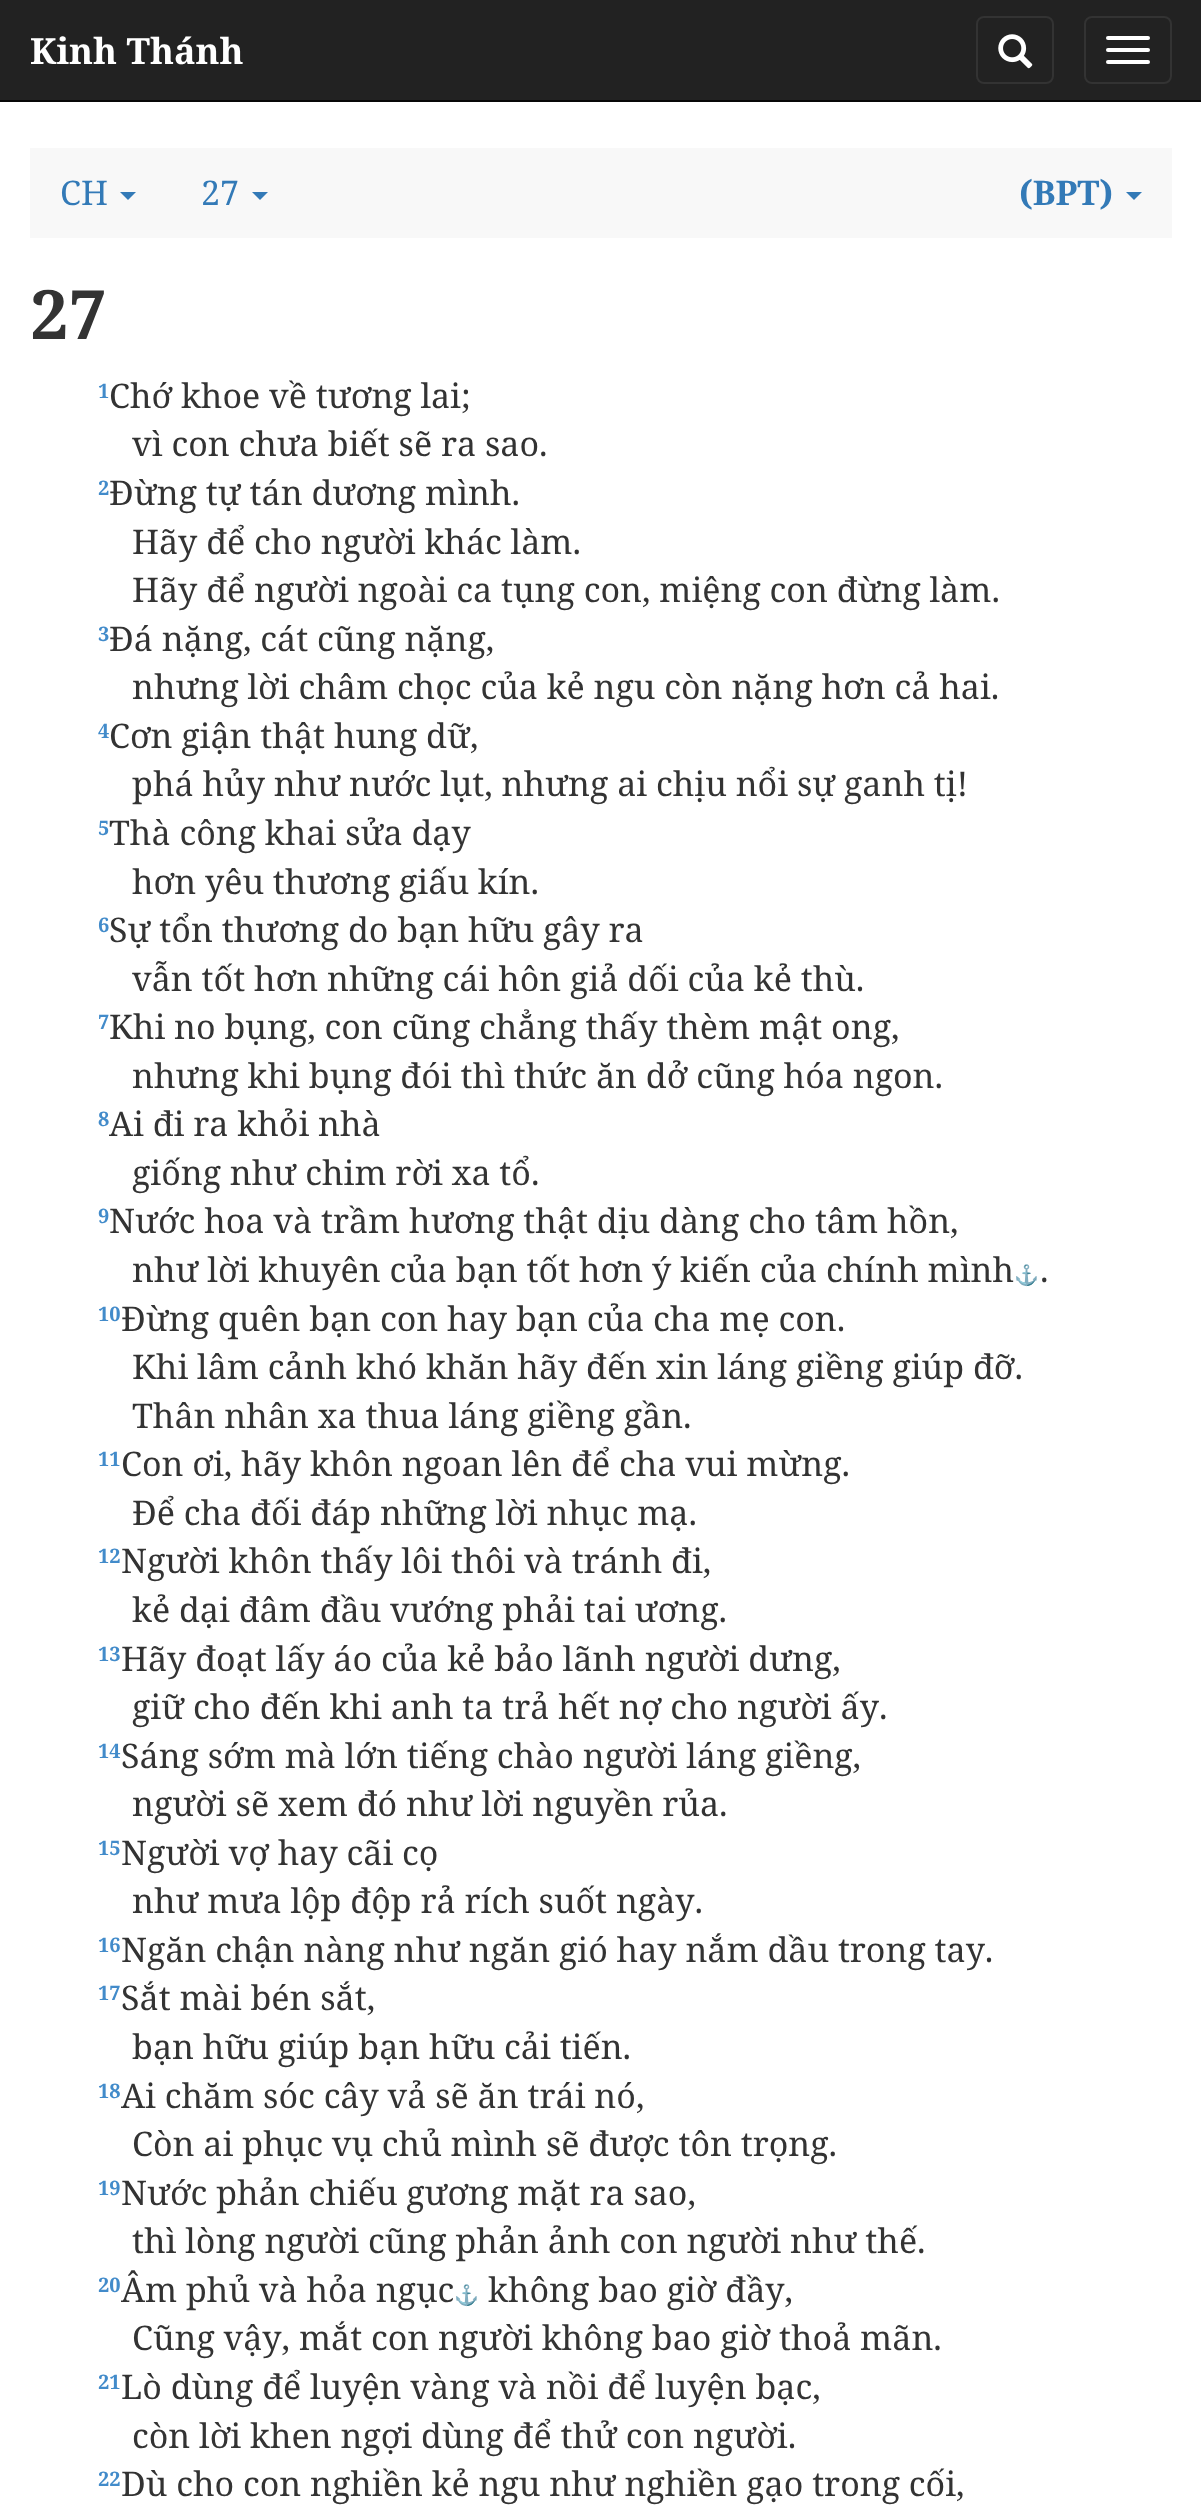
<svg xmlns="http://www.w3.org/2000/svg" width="1201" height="2518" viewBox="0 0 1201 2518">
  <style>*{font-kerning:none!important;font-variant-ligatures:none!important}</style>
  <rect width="100%" height="100%" fill="rgb(255,255,255)"/>
  <rect x="0" y="0" width="1201" height="100" fill="rgb(34,34,34)"/>
  <rect x="0" y="100" width="1201" height="2" fill="rgb(8,8,8)"/>
  <text x="30" y="64" font-family="Noto Serif" font-size="36" font-weight="bold" fill="rgb(255,255,255)">Kinh Thánh</text>
  <rect x="977" y="17" width="76" height="66" rx="7" fill="none" stroke="rgb(51,51,51)" stroke-width="2"/>
  <image x="998" y="34" width="35" height="35" href="pic1.png"/>
  <rect x="1085" y="17" width="86" height="66" rx="7" fill="none" stroke="rgb(51,51,51)" stroke-width="2"/>
  <rect x="1106" y="36" width="44" height="4" rx="2" fill="rgb(255,255,255)"/>
  <rect x="1106" y="48" width="44" height="4" rx="2" fill="rgb(255,255,255)"/>
  <rect x="1106" y="60" width="44" height="4" rx="2" fill="rgb(255,255,255)"/>
  <rect x="30" y="148" width="1142" height="90" fill="rgb(248,248,248)"/>
  <text x="60" y="205" font-family="Noto Serif" font-size="34" fill="rgb(51,122,183)">CH</text>
  <path d="M120 192H136L128 200Z" fill="rgb(51,122,183)"/>
  <text x="201" y="205" font-family="Noto Serif" font-size="34" fill="rgb(51,122,183)">27</text>
  <path d="M252 192H268L260 200Z" fill="rgb(51,122,183)"/>
  <text x="1019" y="205" font-family="Noto Serif" font-size="34" font-weight="bold" fill="rgb(51,122,183)">(BPT)</text>
  <path d="M1126 192H1142L1134 200Z" fill="rgb(51,122,183)"/>
  <text x="30" y="339" font-family="Noto Serif" font-size="68" font-weight="bold" fill="rgb(51,51,51)">27</text>
  <text x="98" y="398" font-family="Noto Serif" font-size="20" font-weight="bold" fill="rgb(66,139,202)">1</text>
  <g font-family="Noto Serif" font-size="34" fill="rgb(51,51,51)">
    <text x="109" y="408">Chớ khoe về tương lai;</text>
    <text x="132" y="456">vì con chưa biết sẽ ra sao.</text>
  </g>
  <text x="98" y="495" font-family="Noto Serif" font-size="20" font-weight="bold" fill="rgb(66,139,202)">2</text>
  <g font-family="Noto Serif" font-size="34" fill="rgb(51,51,51)">
    <text x="109" y="505">Đừng tự tán dương mình.</text>
    <text>
      <tspan x="132" y="554">Hãy để cho người khác làm.</tspan>
      <tspan x="132" y="602">Hãy để người ngoài ca tụng con, miệng con đừng làm.</tspan>
    </text>
  </g>
  <text x="98" y="641" font-family="Noto Serif" font-size="20" font-weight="bold" fill="rgb(66,139,202)">3</text>
  <g font-family="Noto Serif" font-size="34" fill="rgb(51,51,51)">
    <text x="109" y="651">Đá nặng, cát cũng nặng,</text>
    <text x="132" y="699">nhưng lời châm chọc của kẻ ngu còn nặng hơn cả hai.</text>
  </g>
  <text x="98" y="738" font-family="Noto Serif" font-size="20" font-weight="bold" fill="rgb(66,139,202)">4</text>
  <g font-family="Noto Serif" font-size="34" fill="rgb(51,51,51)">
    <text x="109" y="748">Cơn giận thật hung dữ,</text>
    <text x="132" y="796">phá hủy như nước lụt, nhưng ai chịu nổi sự ganh tị!</text>
  </g>
  <text x="98" y="835" font-family="Noto Serif" font-size="20" font-weight="bold" fill="rgb(66,139,202)">5</text>
  <g font-family="Noto Serif" font-size="34" fill="rgb(51,51,51)">
    <text x="109" y="845">Thà công khai sửa dạy</text>
    <text x="132" y="894">hơn yêu thương giấu kín.</text>
  </g>
  <text x="98" y="932" font-family="Noto Serif" font-size="20" font-weight="bold" fill="rgb(66,139,202)">6</text>
  <g font-family="Noto Serif" font-size="34" fill="rgb(51,51,51)">
    <text x="109" y="942">Sự tổn thương do bạn hữu gây ra</text>
    <text x="132" y="991">vẫn tốt hơn những cái hôn giả dối của kẻ thù.</text>
  </g>
  <text x="98" y="1029" font-family="Noto Serif" font-size="20" font-weight="bold" fill="rgb(66,139,202)">7</text>
  <g font-family="Noto Serif" font-size="34" fill="rgb(51,51,51)">
    <text x="109" y="1039">Khi no bụng, con cũng chẳng thấy thèm mật ong,</text>
    <text x="132" y="1088">nhưng khi bụng đói thì thức ăn dở cũng hóa ngon.</text>
  </g>
  <text x="98" y="1126" font-family="Noto Serif" font-size="20" font-weight="bold" fill="rgb(66,139,202)">8</text>
  <g font-family="Noto Serif" font-size="34" fill="rgb(51,51,51)">
    <text x="109" y="1136">Ai đi ra khỏi nhà</text>
    <text x="132" y="1185">giống như chim rời xa tổ.</text>
  </g>
  <text x="98" y="1223" font-family="Noto Serif" font-size="20" font-weight="bold" fill="rgb(66,139,202)">9</text>
  <g font-family="Noto Serif" font-size="34" fill="rgb(51,51,51)">
    <text x="109" y="1233">Nước hoa và trầm hương thật dịu dàng cho tâm hồn,</text>
    <text x="132" y="1282">như lời khuyên của bạn tốt hơn ý kiến của chính mình</text>
  </g>
  <text x="1014" y="1282" font-family="Noto Color Emoji" font-size="20" fill="rgb(66,139,202)">⚓</text>
  <text x="1040" y="1282" font-family="Noto Serif" font-size="34" fill="rgb(51,51,51)">.</text>
  <text x="98" y="1321" font-family="Noto Serif" font-size="20" font-weight="bold" fill="rgb(66,139,202)">10</text>
  <g font-family="Noto Serif" font-size="34" fill="rgb(51,51,51)">
    <text x="121" y="1331">Đừng quên bạn con hay bạn của cha mẹ con.</text>
    <text>
      <tspan x="132" y="1379">Khi lâm cảnh khó khăn hãy đến xin láng giềng giúp đỡ.</tspan>
      <tspan x="132" y="1428">Thân nhân xa thua láng giềng gần.</tspan>
    </text>
  </g>
  <text x="98" y="1466" font-family="Noto Serif" font-size="20" font-weight="bold" fill="rgb(66,139,202)">11</text>
  <g font-family="Noto Serif" font-size="34" fill="rgb(51,51,51)">
    <text x="121" y="1476">Con ơi, hãy khôn ngoan lên để cha vui mừng.</text>
    <text x="132" y="1525">Để cha đối đáp những lời nhục mạ.</text>
  </g>
  <text x="98" y="1563" font-family="Noto Serif" font-size="20" font-weight="bold" fill="rgb(66,139,202)">12</text>
  <g font-family="Noto Serif" font-size="34" fill="rgb(51,51,51)">
    <text x="121" y="1573">Người khôn thấy lôi thôi và tránh đi,</text>
    <text x="132" y="1622">kẻ dại đâm đầu vướng phải tai ương.</text>
  </g>
  <text x="98" y="1661" font-family="Noto Serif" font-size="20" font-weight="bold" fill="rgb(66,139,202)">13</text>
  <g font-family="Noto Serif" font-size="34" fill="rgb(51,51,51)">
    <text x="121" y="1671">Hãy đoạt lấy áo của kẻ bảo lãnh người dưng,</text>
    <text x="132" y="1719">giữ cho đến khi anh ta trả hết nợ cho người ấy.</text>
  </g>
  <text x="98" y="1758" font-family="Noto Serif" font-size="20" font-weight="bold" fill="rgb(66,139,202)">14</text>
  <g font-family="Noto Serif" font-size="34" fill="rgb(51,51,51)">
    <text x="121" y="1768">Sáng sớm mà lớn tiếng chào người láng giềng,</text>
    <text x="132" y="1816">người sẽ xem đó như lời nguyền rủa.</text>
  </g>
  <text x="98" y="1855" font-family="Noto Serif" font-size="20" font-weight="bold" fill="rgb(66,139,202)">15</text>
  <g font-family="Noto Serif" font-size="34" fill="rgb(51,51,51)">
    <text x="121" y="1865">Người vợ hay cãi cọ</text>
    <text x="132" y="1913">như mưa lộp độp rả rích suốt ngày.</text>
  </g>
  <text x="98" y="1952" font-family="Noto Serif" font-size="20" font-weight="bold" fill="rgb(66,139,202)">16</text>
  <text x="121" y="1962" font-family="Noto Serif" font-size="34" fill="rgb(51,51,51)">Ngăn chận nàng như ngăn gió hay nắm dầu trong tay.</text>
  <text x="98" y="2000" font-family="Noto Serif" font-size="20" font-weight="bold" fill="rgb(66,139,202)">17</text>
  <g font-family="Noto Serif" font-size="34" fill="rgb(51,51,51)">
    <text x="121" y="2010">Sắt mài bén sắt,</text>
    <text x="132" y="2059">bạn hữu giúp bạn hữu cải tiến.</text>
  </g>
  <text x="98" y="2098" font-family="Noto Serif" font-size="20" font-weight="bold" fill="rgb(66,139,202)">18</text>
  <g font-family="Noto Serif" font-size="34" fill="rgb(51,51,51)">
    <text x="121" y="2108">Ai chăm sóc cây vả sẽ ăn trái nó,</text>
    <text x="132" y="2156">Còn ai phục vụ chủ mình sẽ được tôn trọng.</text>
  </g>
  <text x="98" y="2195" font-family="Noto Serif" font-size="20" font-weight="bold" fill="rgb(66,139,202)">19</text>
  <g font-family="Noto Serif" font-size="34" fill="rgb(51,51,51)">
    <text x="121" y="2205">Nước phản chiếu gương mặt ra sao,</text>
    <text x="132" y="2253">thì lòng người cũng phản ảnh con người như thế.</text>
  </g>
  <text x="98" y="2292" font-family="Noto Serif" font-size="20" font-weight="bold" fill="rgb(66,139,202)">20</text>
  <text x="121" y="2302" font-family="Noto Serif" font-size="34" fill="rgb(51,51,51)">Âm phủ và hỏa ngục</text>
  <text x="454" y="2302" font-family="Noto Color Emoji" font-size="20" fill="rgb(66,139,202)">⚓</text>
  <g font-family="Noto Serif" font-size="34" fill="rgb(51,51,51)">
    <text x="488" y="2302">không bao giờ đầy,</text>
    <text x="132" y="2350">Cũng vậy, mắt con người không bao giờ thoả mãn.</text>
  </g>
  <text x="98" y="2389" font-family="Noto Serif" font-size="20" font-weight="bold" fill="rgb(66,139,202)">21</text>
  <g font-family="Noto Serif" font-size="34" fill="rgb(51,51,51)">
    <text x="121" y="2399">Lò dùng để luyện vàng và nồi để luyện bạc,</text>
    <text x="132" y="2448">còn lời khen ngợi dùng để thử con người.</text>
  </g>
  <text x="98" y="2486" font-family="Noto Serif" font-size="20" font-weight="bold" fill="rgb(66,139,202)">22</text>
  <text x="121" y="2496" font-family="Noto Serif" font-size="34" fill="rgb(51,51,51)">Dù cho con nghiền kẻ ngu như nghiền gạo trong cối,</text>
</svg>
